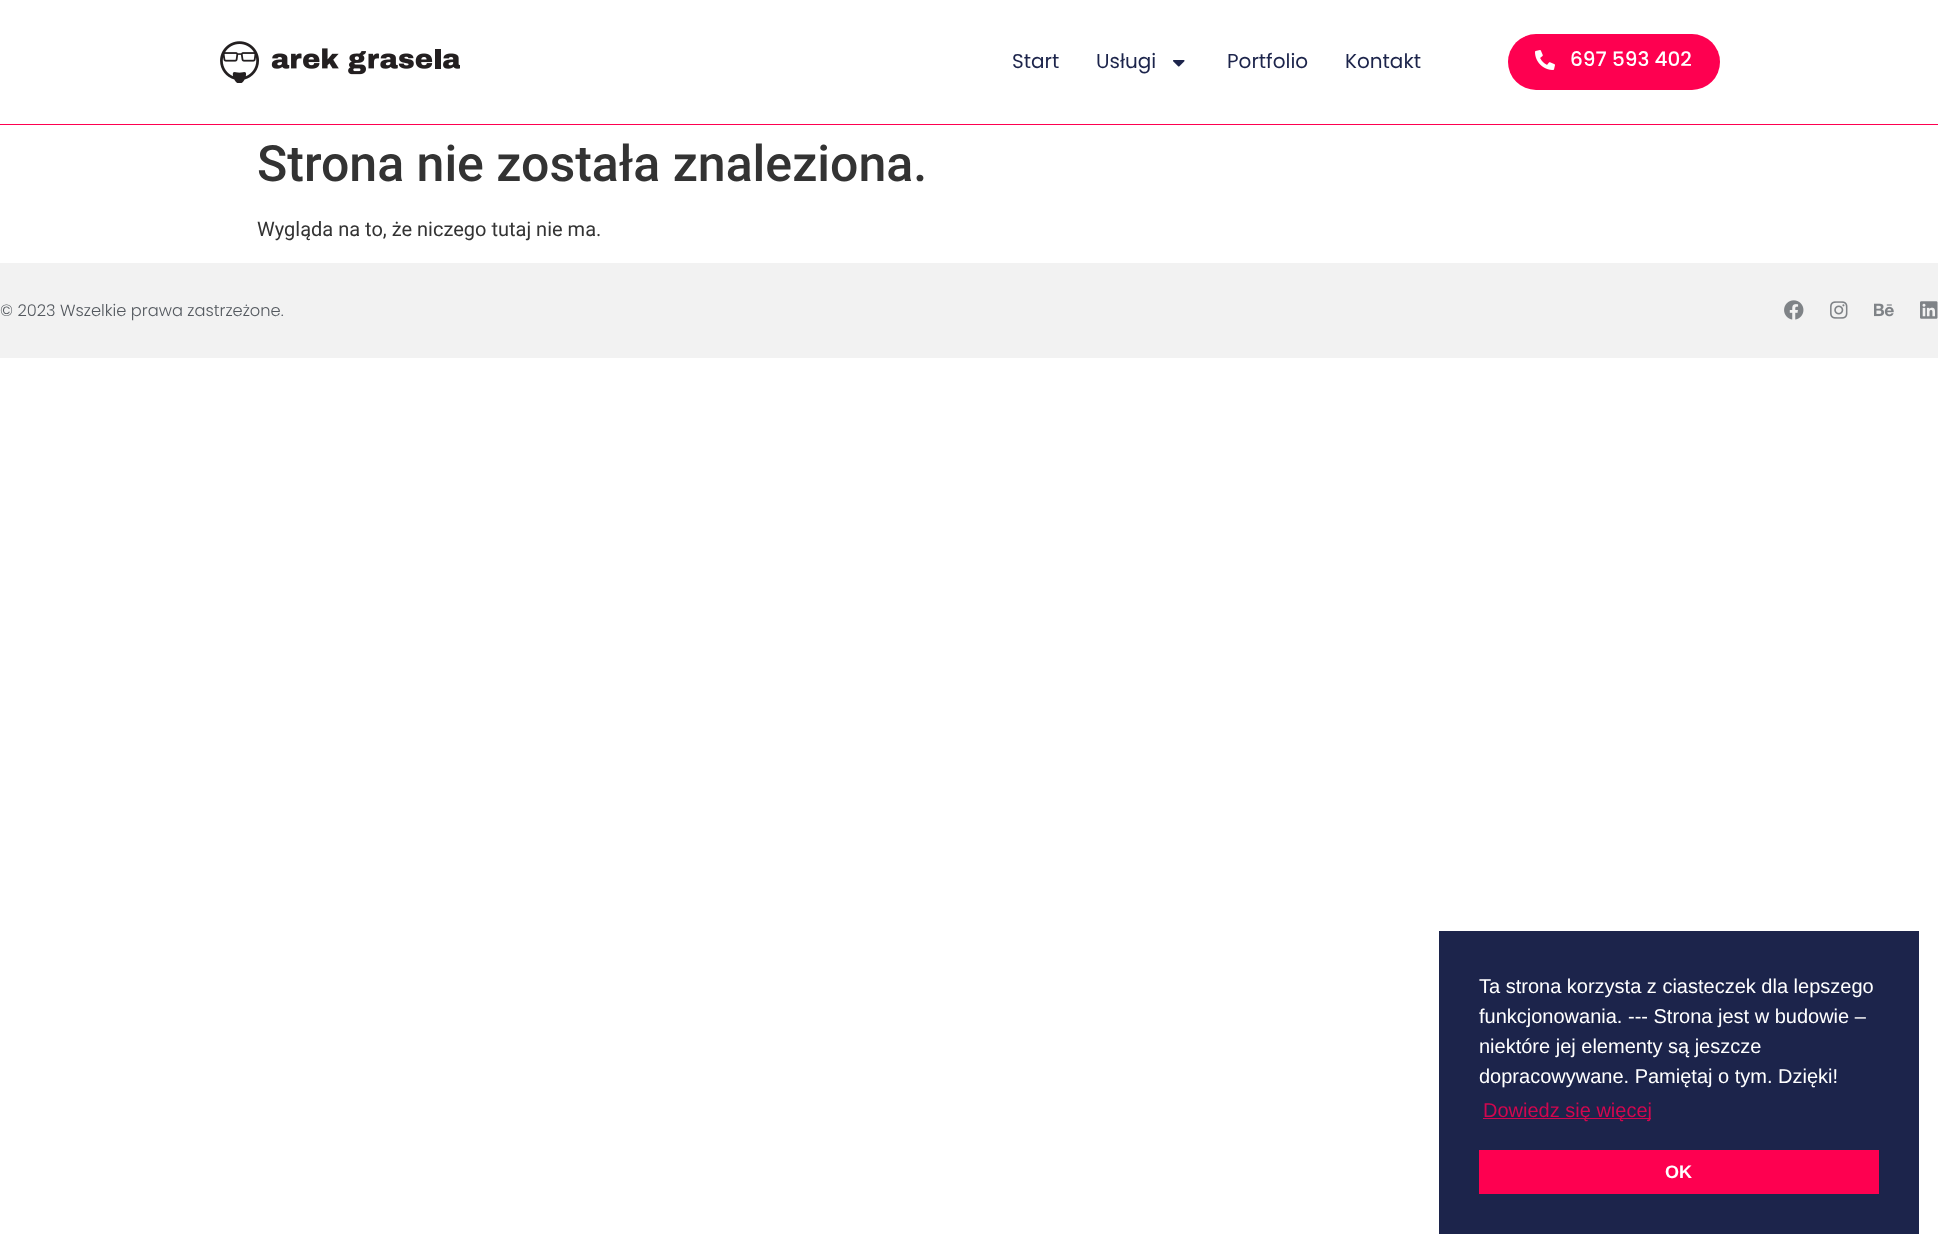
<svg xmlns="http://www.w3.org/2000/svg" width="1938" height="1253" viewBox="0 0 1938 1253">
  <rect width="100%" height="100%" fill="rgb(255,255,255)"/>
  <rect x="0" y="124" width="1938" height="1" fill="rgb(254,0,80)"/>
  <image x="220" y="41" width="240" height="42" href="pic1.png"/>
  <g font-family="Poppins" font-size="20" fill="rgb(28,36,75)">
    <text x="1012" y="68">Start</text>
    <text x="1096" y="68">Usługi</text>
  </g>
  <image x="1173" y="60" width="12" height="7" href="pic2.png"/>
  <g font-family="Poppins" font-size="20" fill="rgb(28,36,75)">
    <text x="1227" y="68">Portfolio</text>
    <text x="1345" y="68">Kontakt</text>
  </g>
  <rect x="1508" y="34" width="212" height="56" rx="28" fill="rgb(254,0,80)"/>
  <image x="1535" y="50" width="20" height="20" href="pic3.png"/>
  <text x="1570" y="66" font-family="Poppins" font-size="20" font-weight="500" fill="rgb(255,255,255)">697 593 402</text>
  <text x="257" y="181" font-family="Roboto" font-size="50" font-weight="500" fill="rgb(51,51,51)">Strona nie została znaleziona.</text>
  <text x="257" y="236" font-family="Roboto" font-size="20" fill="rgb(51,51,51)">Wygląda na to, że niczego tutaj nie ma.</text>
  <rect x="0" y="263" width="1938" height="95" fill="rgb(242,242,242)"/>
  <text x="0" y="316" font-family="Poppins" font-size="16.25" font-weight="300" fill="rgb(84,89,95)">© 2023 Wszelkie prawa zastrzeżone.</text>
  <image x="1784" y="300" width="20" height="20" href="pic4.png"/>
  <image x="1830" y="301" width="18" height="18" href="pic5.png"/>
  <image x="1874" y="303" width="20" height="14" href="pic6.png"/>
  <image x="1920" y="301" width="18" height="18" href="pic7.png"/>
  <rect x="1439" y="931" width="480" height="303" fill="rgb(28,36,75)"/>
  <g font-family="Liberation Sans" font-size="20" fill="rgb(255,255,255)">
    <text>
      <tspan x="1479" y="993">Ta strona korzysta z ciasteczek dla lepszego</tspan>
      <tspan x="1479" y="1023">funkcjonowania. --- Strona jest w budowie –</tspan>
      <tspan x="1479" y="1053">niektóre jej elementy są jeszcze</tspan>
      <tspan x="1479" y="1083">dopracowywane. Pamiętaj o tym. Dzięki!</tspan>
    </text>
  </g>
  <rect x="1483" y="1118" width="168" height="1" fill="rgb(209,7,79)"/>
  <text x="1483" y="1117" font-family="Liberation Sans" font-size="20" fill="rgb(209,7,79)">Dowiedz się więcej</text>
  <rect x="1479" y="1150" width="400" height="44" fill="rgb(254,0,80)"/>
  <text x="1665" y="1178" font-family="Liberation Sans" font-size="18" font-weight="bold" fill="rgb(255,255,255)">OK</text>
</svg>
